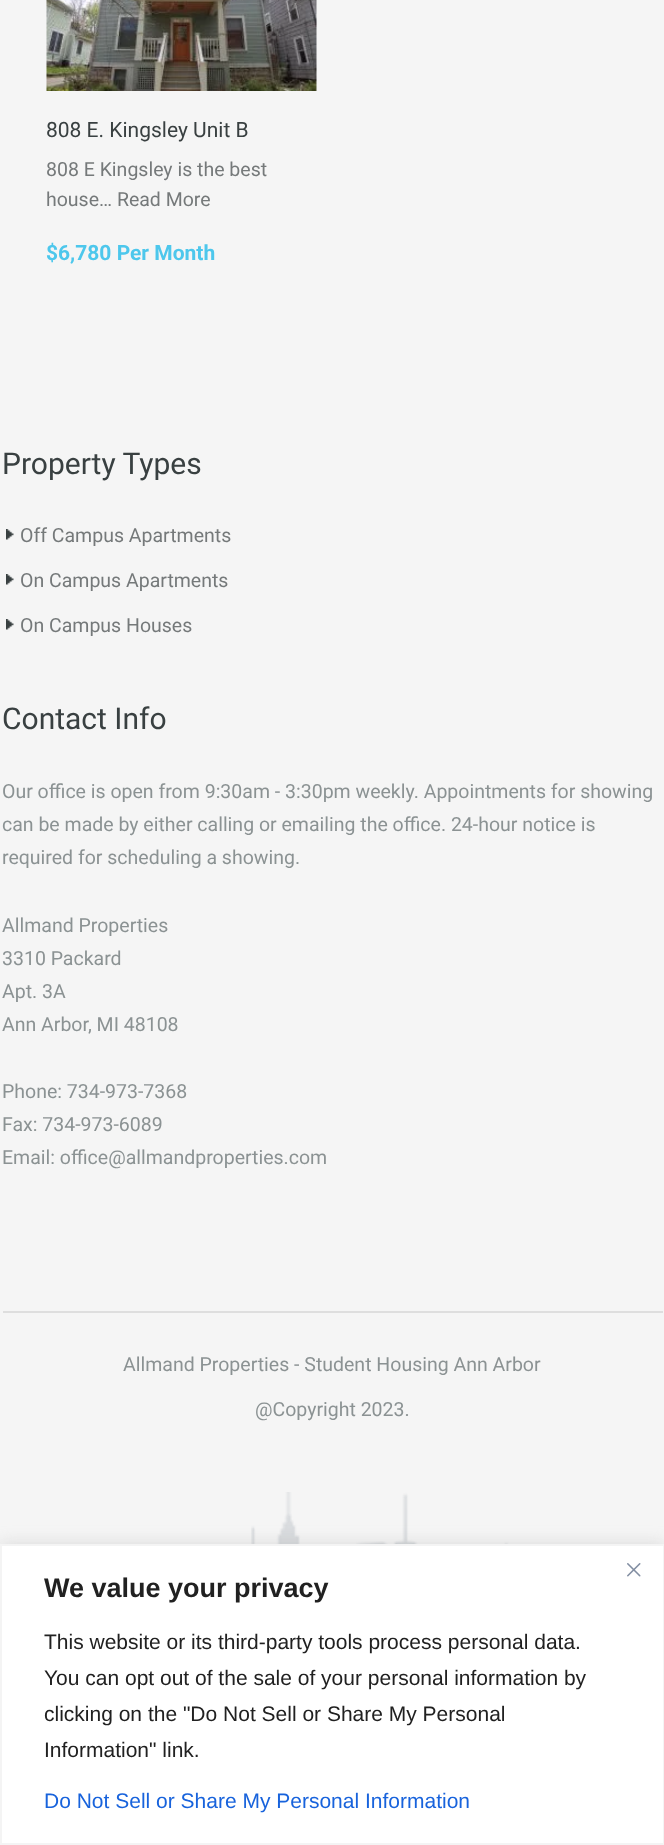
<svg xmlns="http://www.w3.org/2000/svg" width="664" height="1845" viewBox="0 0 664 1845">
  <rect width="100%" height="100%" fill="rgb(245,245,245)"/>
  <image x="251" y="1492" width="258" height="52" href="pic1.png"/>
  <image x="46" y="0" width="271" height="91" href="pic2.png"/>
  <text x="46" y="137" font-family="Roboto" font-size="21" fill="rgb(57,64,65)">808 E. Kingsley Unit B</text>
  <g font-family="Roboto" font-size="19.5" fill="rgb(117,121,122)">
    <text>
      <tspan x="46" y="176">808 E Kingsley is the best</tspan>
      <tspan x="46" y="206">house… Read More</tspan>
    </text>
  </g>
  <text x="46" y="260" font-family="Roboto" font-size="21" font-weight="bold" fill="rgb(77,199,236)">$6,780 Per Month</text>
  <text x="2" y="474" font-family="Roboto" font-size="30" fill="rgb(57,64,65)">Property Types</text>
  <image x="6" y="529" width="8" height="11" href="pic3.png"/>
  <text x="20" y="542" font-family="Roboto" font-size="19.5" fill="rgb(117,121,122)">Off Campus Apartments</text>
  <image x="6" y="574" width="8" height="11" href="pic3.png"/>
  <text x="20" y="587" font-family="Roboto" font-size="19.5" fill="rgb(117,121,122)">On Campus Apartments</text>
  <image x="6" y="619" width="8" height="11" href="pic3.png"/>
  <text x="20" y="632" font-family="Roboto" font-size="19.5" fill="rgb(117,121,122)">On Campus Houses</text>
  <text x="2" y="729" font-family="Roboto" font-size="30" fill="rgb(57,64,65)">Contact Info</text>
  <g font-family="Roboto" font-size="19.5" fill="rgb(139,146,147)">
    <text>
      <tspan x="2" y="798">Our office is open from 9:30am - 3:30pm weekly. Appointments for showing</tspan>
      <tspan x="2" y="831">can be made by either calling or emailing the office. 24-hour notice is</tspan>
      <tspan x="2" y="864">required for scheduling a showing.</tspan>
    </text>
    <text>
      <tspan x="2" y="932">Allmand Properties</tspan>
      <tspan x="2" y="965">3310 Packard</tspan>
      <tspan x="2" y="998">Apt. 3A</tspan>
      <tspan x="2" y="1031">Ann Arbor, MI 48108</tspan>
    </text>
    <text>
      <tspan x="2" y="1098">Phone: 734-973-7368</tspan>
      <tspan x="2" y="1131">Fax: 734-973-6089</tspan>
      <tspan x="2" y="1164">Email: office@allmandproperties.com</tspan>
    </text>
  </g>
  <rect x="3" y="1311" width="660" height="2" fill="rgb(222,222,222)"/>
  <g font-family="Roboto" font-size="19.5" fill="rgb(139,146,147)">
    <text x="123" y="1371">Allmand Properties - Student Housing Ann Arbor</text>
    <text x="255" y="1416">@Copyright 2023.</text>
  </g>
  <rect x="0" y="1542" width="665" height="302" fill="rgba(172,171,171,0.3)" filter="blur(7.5px)"/>
  <rect x="1" y="1545" width="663" height="299" fill="rgb(255,255,255)" stroke="rgb(244,244,244)" stroke-width="2"/>
  <image x="627" y="1563" width="14" height="14" href="pic4.png"/>
  <text x="44" y="1597" font-family="Liberation Sans" font-size="27" font-weight="bold" fill="rgb(33,33,33)">We value your privacy</text>
  <g font-family="Liberation Sans" font-size="21" fill="rgb(33,33,33)">
    <text>
      <tspan x="44" y="1649">This website or its third-party tools process personal data.</tspan>
      <tspan x="44" y="1685">You can opt out of the sale of your personal information by</tspan>
      <tspan x="44" y="1721">clicking on the "Do Not Sell or Share My Personal</tspan>
      <tspan x="44" y="1757">Information" link.</tspan>
    </text>
  </g>
  <text x="44" y="1808" font-family="Liberation Sans" font-size="21" fill="rgb(24,99,220)">Do Not Sell or Share My Personal Information</text>
</svg>
